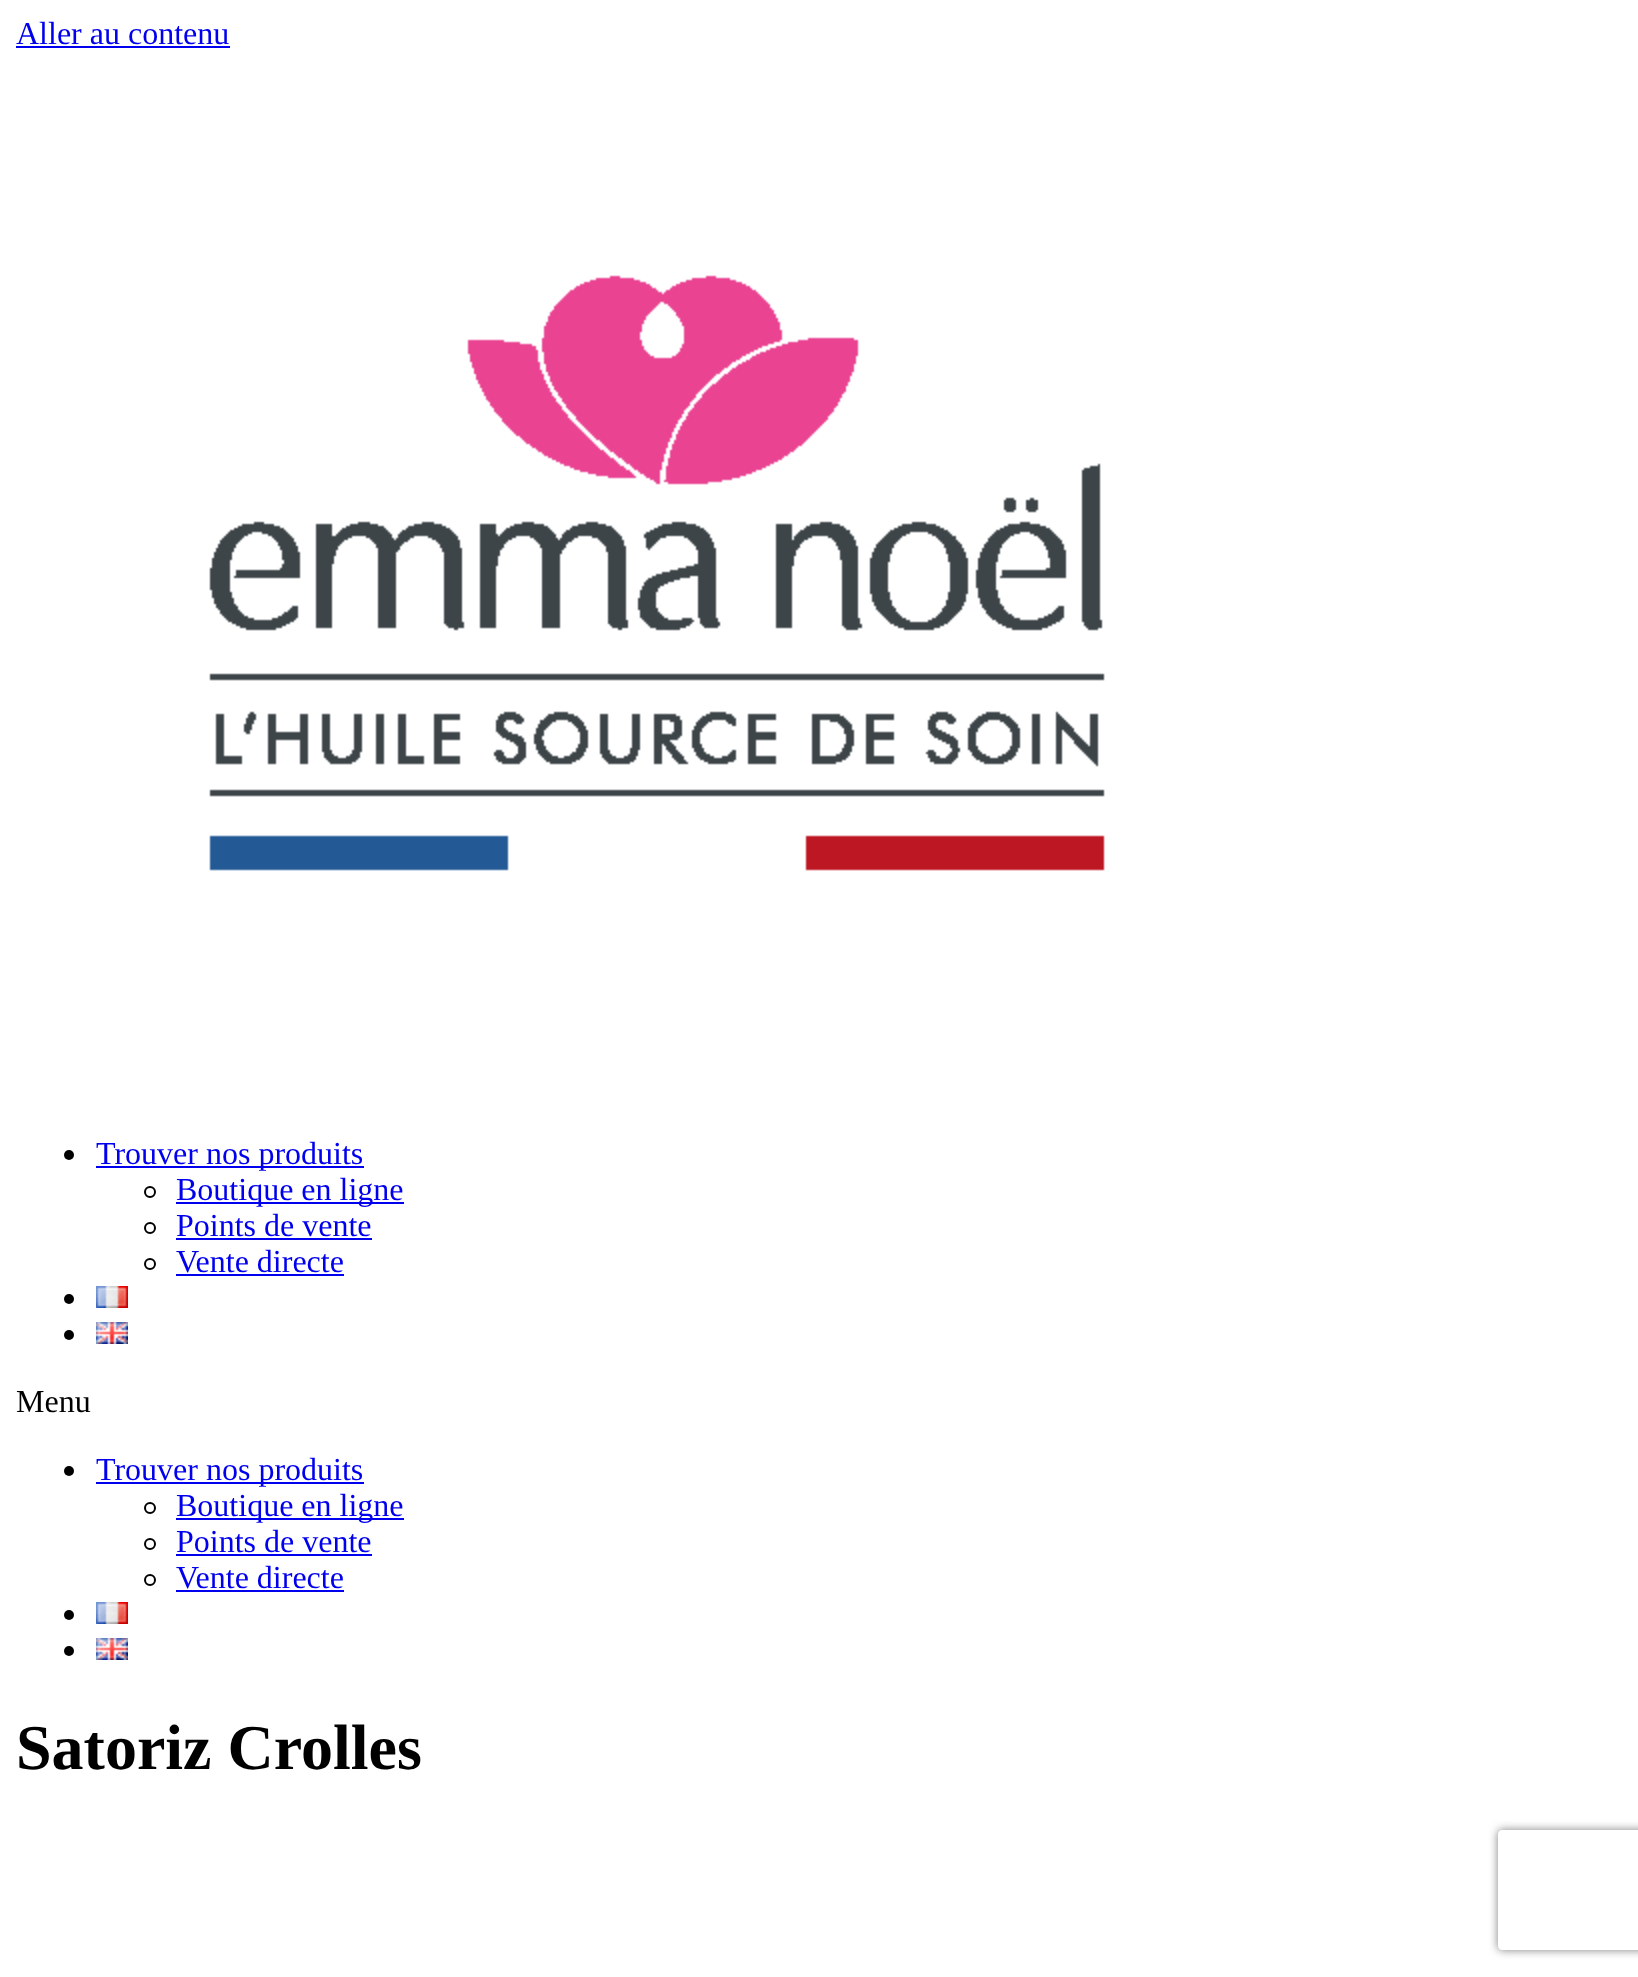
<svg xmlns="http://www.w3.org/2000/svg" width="1638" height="1977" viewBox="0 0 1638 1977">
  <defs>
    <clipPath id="clip1"><path d="M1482 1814H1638V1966H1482ZM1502 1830H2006C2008 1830 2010 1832 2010 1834V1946C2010 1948 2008 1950 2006 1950H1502C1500 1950 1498 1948 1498 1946V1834C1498 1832 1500 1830 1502 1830Z" clip-rule="evenodd"/></clipPath>
  </defs>
  <rect width="100%" height="100%" fill="rgb(255,255,255)"/>
  <text x="16" y="44" font-family="Liberation Serif" font-size="32" fill="rgb(0,0,238)">Aller au contenu</text>
  <rect x="16" y="46" width="214" height="2" fill="rgb(0,0,238)"/>
  <image x="209" y="275" width="896" height="596" href="pic1.png"/>
  <circle cx="69" cy="1155" r="5" fill="rgb(0,0,0)"/>
  <rect x="96" y="1166" width="268" height="2" fill="rgb(0,0,238)"/>
  <text x="96" y="1164" font-family="Liberation Serif" font-size="32" fill="rgb(0,0,238)">Trouver nos produits</text>
  <circle cx="150" cy="1192" r="5" fill="none" stroke="rgb(0,0,0)" stroke-width="2"/>
  <rect x="176" y="1202" width="228" height="2" fill="rgb(0,0,238)"/>
  <text x="176" y="1200" font-family="Liberation Serif" font-size="32" fill="rgb(0,0,238)">Boutique en ligne</text>
  <circle cx="150" cy="1228" r="5" fill="none" stroke="rgb(0,0,0)" stroke-width="2"/>
  <text x="176" y="1236" font-family="Liberation Serif" font-size="32" fill="rgb(0,0,238)">Points de vente</text>
  <rect x="176" y="1238" width="196" height="2" fill="rgb(0,0,238)"/>
  <circle cx="150" cy="1264" r="5" fill="none" stroke="rgb(0,0,0)" stroke-width="2"/>
  <text x="176" y="1272" font-family="Liberation Serif" font-size="32" fill="rgb(0,0,238)">Vente directe</text>
  <rect x="176" y="1274" width="168" height="2" fill="rgb(0,0,238)"/>
  <circle cx="69" cy="1299" r="5" fill="rgb(0,0,0)"/>
  <image x="96" y="1286" width="32" height="22" href="pic2.png"/>
  <circle cx="69" cy="1335" r="5" fill="rgb(0,0,0)"/>
  <image x="96" y="1322" width="32" height="22" href="pic3.png"/>
  <text x="16" y="1412" font-family="Liberation Serif" font-size="32" fill="rgb(0,0,0)">Menu</text>
  <circle cx="69" cy="1471" r="5" fill="rgb(0,0,0)"/>
  <rect x="96" y="1482" width="268" height="2" fill="rgb(0,0,238)"/>
  <text x="96" y="1480" font-family="Liberation Serif" font-size="32" fill="rgb(0,0,238)">Trouver nos produits</text>
  <circle cx="150" cy="1508" r="5" fill="none" stroke="rgb(0,0,0)" stroke-width="2"/>
  <rect x="176" y="1518" width="228" height="2" fill="rgb(0,0,238)"/>
  <text x="176" y="1516" font-family="Liberation Serif" font-size="32" fill="rgb(0,0,238)">Boutique en ligne</text>
  <circle cx="150" cy="1544" r="5" fill="none" stroke="rgb(0,0,0)" stroke-width="2"/>
  <text x="176" y="1552" font-family="Liberation Serif" font-size="32" fill="rgb(0,0,238)">Points de vente</text>
  <rect x="176" y="1554" width="196" height="2" fill="rgb(0,0,238)"/>
  <circle cx="150" cy="1580" r="5" fill="none" stroke="rgb(0,0,0)" stroke-width="2"/>
  <text x="176" y="1588" font-family="Liberation Serif" font-size="32" fill="rgb(0,0,238)">Vente directe</text>
  <rect x="176" y="1590" width="168" height="2" fill="rgb(0,0,238)"/>
  <circle cx="69" cy="1615" r="5" fill="rgb(0,0,0)"/>
  <image x="96" y="1602" width="32" height="22" href="pic2.png"/>
  <circle cx="69" cy="1651" r="5" fill="rgb(0,0,0)"/>
  <image x="96" y="1638" width="32" height="22" href="pic3.png"/>
  <text x="16" y="1769" font-family="Liberation Serif" font-size="64" font-weight="bold" fill="rgb(0,0,0)">Satoriz Crolles</text>
  <g clip-path="url(#clip1)">
    <rect x="1498" y="1830" width="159" height="120" rx="4" fill="rgb(128,128,128)" filter="blur(5px)"/>
  </g>
</svg>
